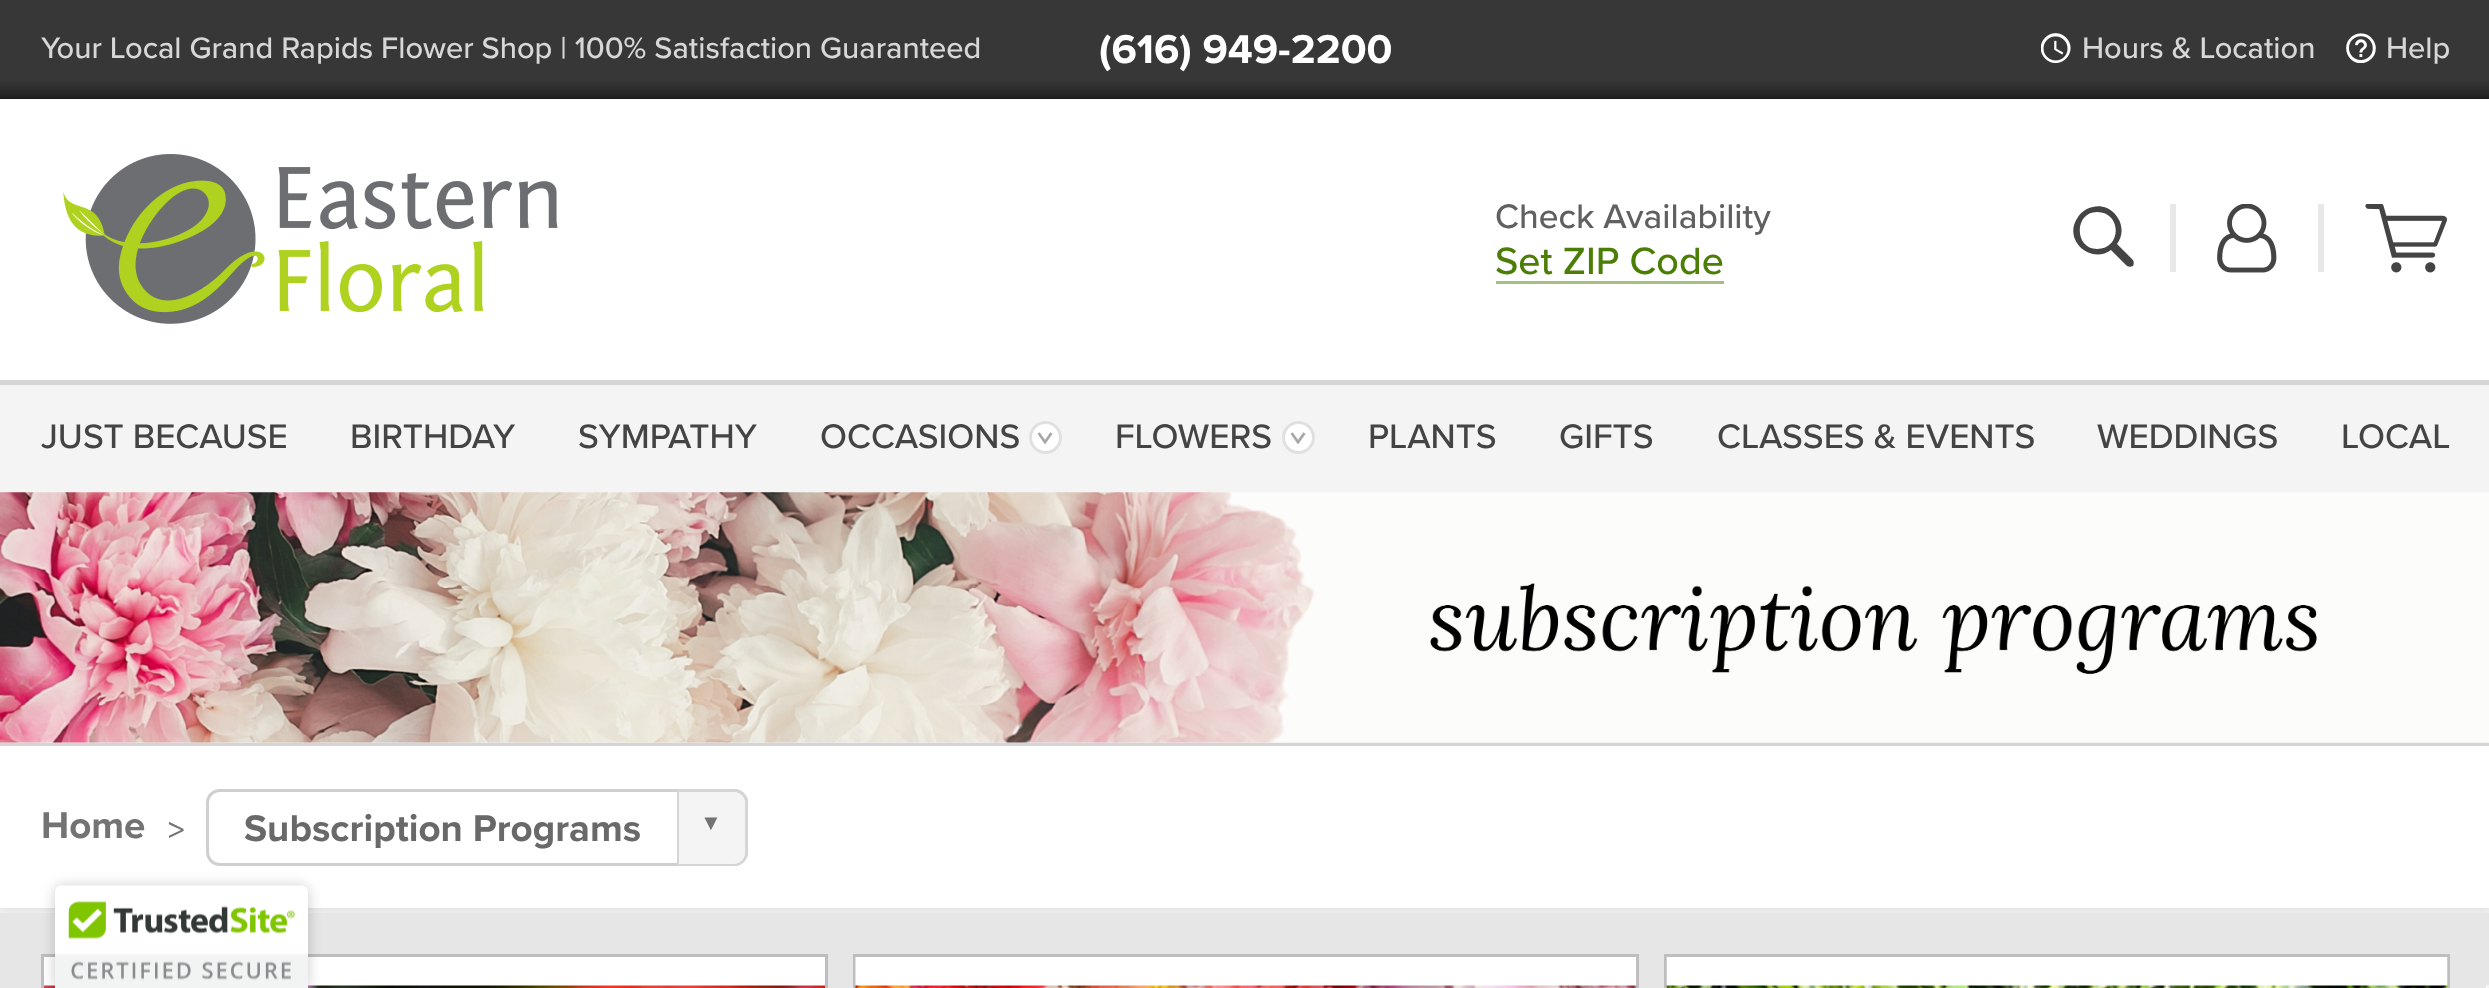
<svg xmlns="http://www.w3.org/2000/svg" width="2489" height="988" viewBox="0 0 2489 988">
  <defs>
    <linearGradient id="g1" gradientUnits="userSpaceOnUse" x1="1246" y1="80" x2="1246" y2="99"><stop offset="0" stop-color="rgb(55,55,55)"/><stop offset="0.5" stop-color="rgb(44,44,44)"/><stop offset="0.75" stop-color="rgb(39,39,39)"/><stop offset="1" stop-color="rgb(28,28,28)"/></linearGradient>
  </defs>
  <rect width="100%" height="100%" fill="rgb(244,244,244)"/>
  <rect x="0" y="99" width="2489" height="281" fill="rgb(255,255,255)"/>
  <rect x="0" y="0" width="2489" height="80" fill="rgb(55,55,55)"/>
  <text x="41" y="58" font-family="Proxima Nova" font-size="30.8" font-weight="500" fill="rgb(215,215,215)">Your Local Grand Rapids Flower Shop | 100% Satisfaction Guaranteed</text>
  <text x="1099" y="63" font-family="Proxima Nova" font-size="41.75" font-weight="bold" fill="rgb(255,255,255)">(616) 949-2200</text>
  <image x="2041" y="33" width="30" height="30" href="pic1.png"/>
  <text x="2082" y="58" font-family="Proxima Nova" font-size="30.8" font-weight="500" fill="rgb(215,215,215)">Hours &amp; Location</text>
  <image x="2346" y="33" width="30" height="30" href="pic2.png"/>
  <text x="2386" y="58" font-family="Proxima Nova" font-size="30.8" font-weight="500" fill="rgb(215,215,215)">Help</text>
  <rect x="0" y="80" width="2489" height="19" fill="url(#g1)"/>
  <image x="63" y="154" width="495" height="170" href="pic3.png"/>
  <text x="1495" y="228" font-family="Proxima Nova" font-size="35.25" font-weight="500" fill="rgb(96,96,96)">Check Availability</text>
  <rect x="1496" y="281" width="228" height="3" fill="rgb(166,190,130)"/>
  <text x="1495" y="274" font-family="Proxima Nova" font-size="39.5" font-weight="500" fill="rgb(76,125,5)">Set ZIP Code</text>
  <path d="M2111 250C2090 265 2062 239 2078 217C2081 212 2087 208 2093 207C2101 205 2109 208 2114 213C2123 222 2124 235 2117 244L2133 260C2134 262 2134 264 2133 266C2131 267 2129 267 2127 266ZM2097 249C2122 249 2122 212 2097 212C2074 212 2074 249 2097 249Z" fill="rgb(68,68,68)"/>
  <rect x="2170" y="204" width="6" height="68" fill="rgb(232,232,232)"/>
  <image x="2217" y="204" width="60" height="69" href="pic4.png"/>
  <rect x="2318" y="204" width="6" height="68" fill="rgb(232,232,232)"/>
  <image x="2365" y="204" width="82" height="69" href="pic5.png"/>
  <rect x="0" y="380" width="2489" height="5" fill="rgb(213,213,213)"/>
  <g font-family="Proxima Nova" font-size="35.25" font-weight="500" fill="rgb(68,68,68)">
    <text x="41" y="448">JUST BECAUSE</text>
    <text x="350" y="448">BIRTHDAY</text>
    <text x="578" y="448">SYMPATHY</text>
    <text x="820" y="448">OCCASIONS</text>
  </g>
  <circle cx="1045.5" cy="437.5" r="16.5" fill="rgb(255,255,255)"/>
  <image x="1037" y="432" width="16" height="12" href="pic6.png"/>
  <circle cx="1045.5" cy="437.5" r="15" fill="none" stroke="rgba(213,213,213,0.75)" stroke-width="3"/>
  <text x="1115" y="448" font-family="Proxima Nova" font-size="35.25" font-weight="500" fill="rgb(68,68,68)">FLOWERS</text>
  <circle cx="1298.5" cy="437.5" r="16.5" fill="rgb(255,255,255)"/>
  <image x="1290" y="432" width="16" height="12" href="pic6.png"/>
  <circle cx="1298.5" cy="437.5" r="15" fill="none" stroke="rgba(213,213,213,0.75)" stroke-width="3"/>
  <g font-family="Proxima Nova" font-size="35.25" font-weight="500" fill="rgb(68,68,68)">
    <text x="1368" y="448">PLANTS</text>
    <text x="1559" y="448">GIFTS</text>
    <text x="1717" y="448">CLASSES &amp; EVENTS</text>
    <text x="2097" y="448">WEDDINGS</text>
    <text x="2341" y="448">LOCAL</text>
  </g>
  <rect x="0" y="745" width="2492" height="165" fill="rgba(13,13,13,0.1)" filter="blur(5.5px)"/>
  <image x="0" y="492" width="2489" height="251" href="pic7.png"/>
  <rect x="0" y="746" width="2489" height="162" fill="rgb(255,255,255)"/>
  <rect x="0" y="743" width="2489" height="3" fill="rgb(213,213,213)"/>
  <text x="41" y="838" font-family="Proxima Nova" font-size="38.5" font-weight="bold" fill="rgb(115,115,115)">Home</text>
  <text x="168" y="841" font-family="Proxima Nova" font-size="33" font-weight="500" fill="rgb(115,115,115)">&gt;</text>
  <rect x="207.5" y="790.5" width="539" height="74" rx="12.5" fill="none" stroke="rgb(207,207,207)" stroke-width="3"/>
  <text x="244" y="841" font-family="Proxima Nova" font-size="38.5" font-weight="bold" fill="rgb(105,105,105)">Subscription Programs</text>
  <path d="M678.5 790.5H734C741 790.5 746.5 796 746.5 803V852C746.5 859 741 864.5 734 864.5H678.5Z" fill="none" stroke="rgb(213,213,213)" stroke-width="3"/>
  <path d="M679 792H734C740 792 745 797 745 803V853C745 859 740 864 734 864H679Z" fill="rgb(244,244,244)"/>
  <text x="700" y="830" font-family="Liberation Sans" font-size="22" font-weight="bold" fill="rgb(115,115,115)">▼</text>
  <rect x="0" y="913" width="2489" height="75" fill="rgb(230,230,230)"/>
  <rect x="42.5" y="955.5" width="784" height="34" fill="none" stroke="rgb(190,190,190)" stroke-width="3"/>
  <image x="44" y="957" width="781" height="31" href="pic8.png"/>
  <rect x="854.5" y="955.5" width="783" height="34" fill="none" stroke="rgb(190,190,190)" stroke-width="3"/>
  <image x="855" y="957" width="782" height="31" href="pic9.png"/>
  <rect x="1665.5" y="955.5" width="783" height="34" fill="none" stroke="rgb(190,190,190)" stroke-width="3"/>
  <image x="1666" y="957" width="782" height="31" href="pic10.png"/>
  <rect x="55" y="886" width="253" height="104" rx="6" fill="rgba(0,0,0,0.2)" filter="blur(7px)"/>
  <image x="55" y="885" width="253" height="103" href="pic11.png"/>
  <rect x="2486" y="985" width="3" height="3" fill="rgb(245,245,245)"/>
</svg>
